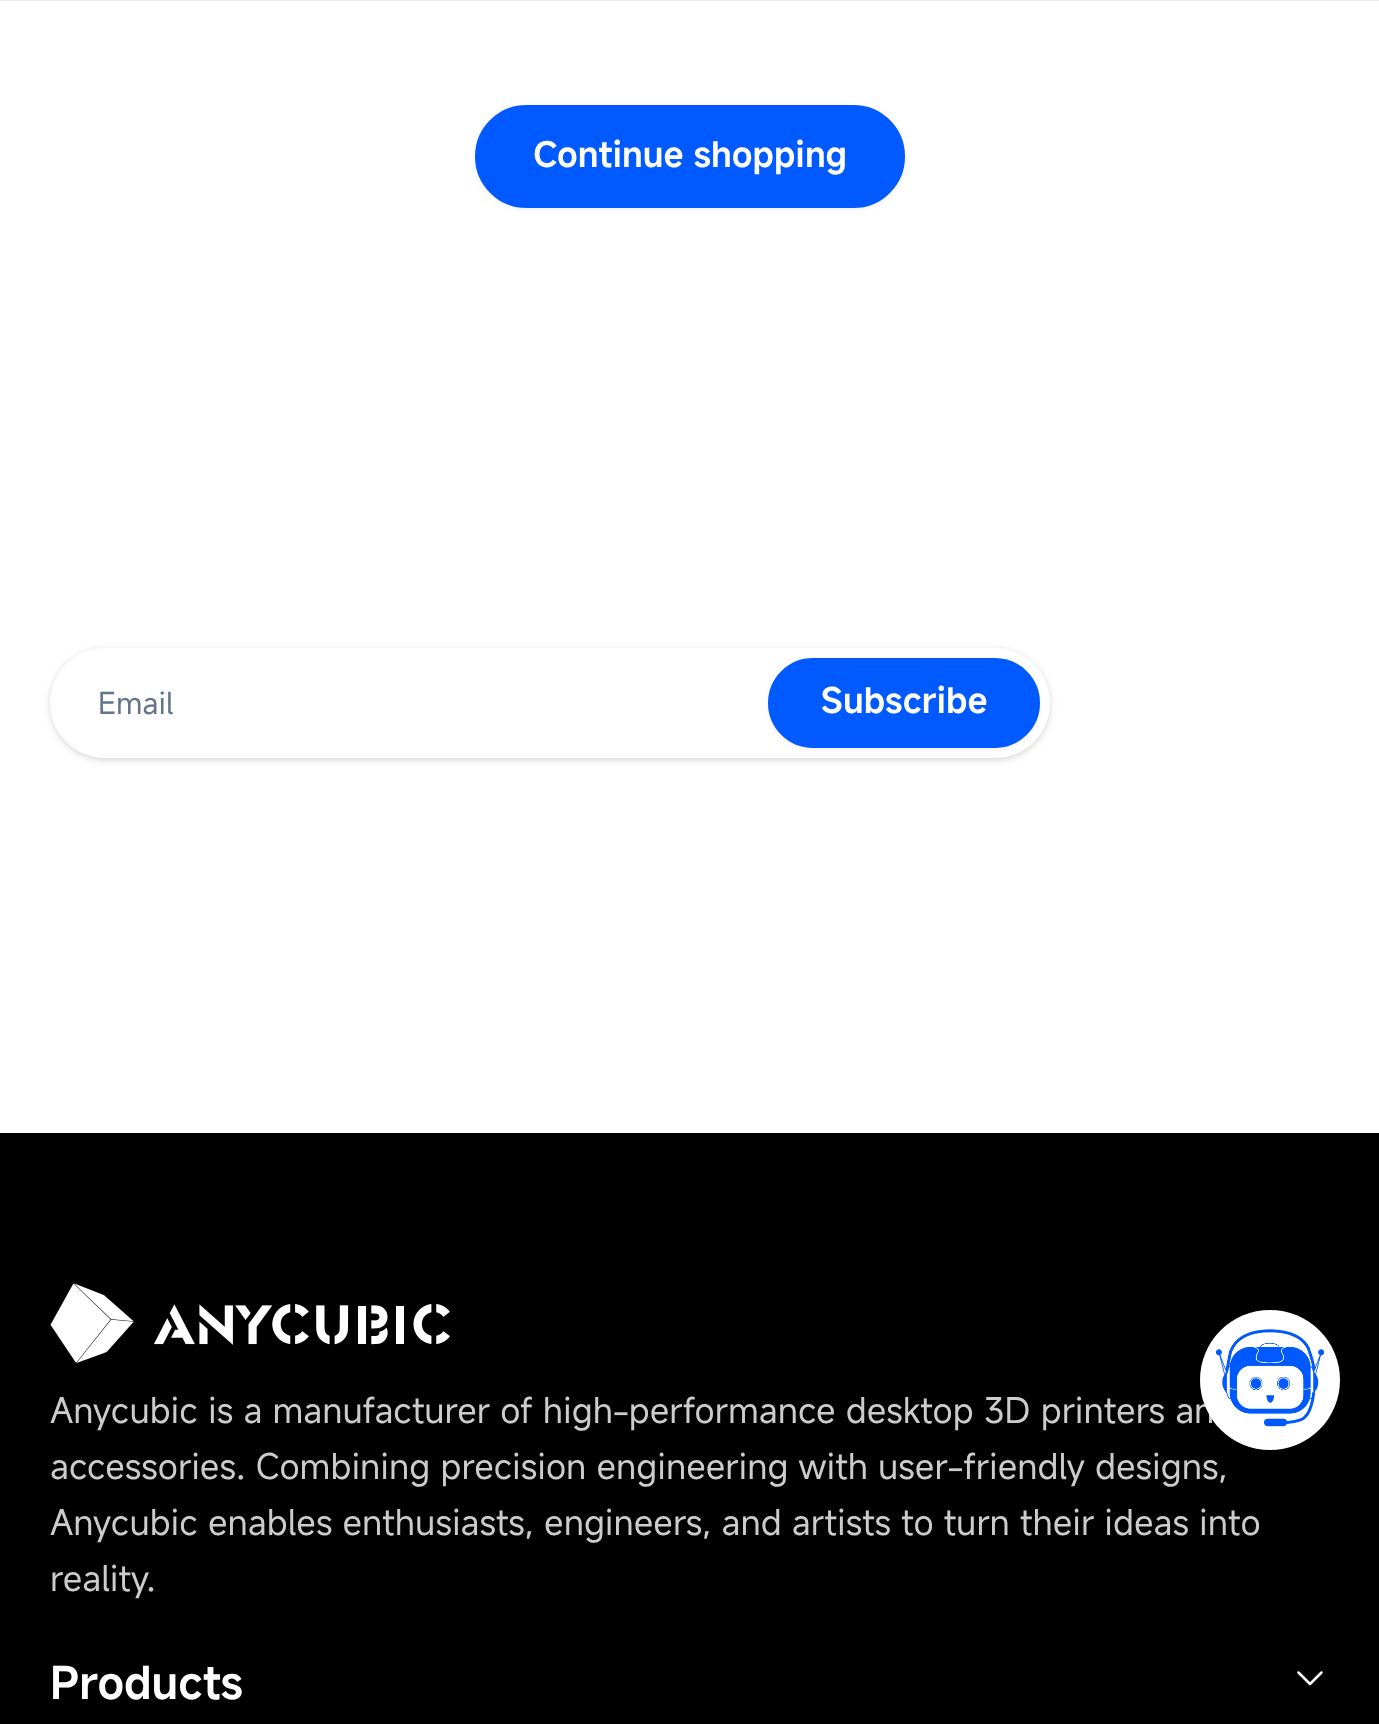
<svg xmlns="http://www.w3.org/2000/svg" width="1379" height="1724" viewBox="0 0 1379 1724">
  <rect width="100%" height="100%" fill="rgb(255,255,255)"/>
  <rect x="0" y="0" width="1379" height="1" fill="rgb(235,235,235)"/>
  <rect x="475" y="108" width="430" height="102" rx="51" fill="rgba(0,0,0,0.05)" filter="blur(2.5px)"/>
  <rect x="476.5" y="106.5" width="427" height="100" rx="50" fill="rgb(0,90,255)" stroke="rgb(0,90,255)" stroke-width="3"/>
  <text x="533" y="167" font-family="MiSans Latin" font-size="35" font-weight="600" fill="rgb(255,255,255)">Continue shopping</text>
  <rect x="50" y="650" width="1000" height="110" rx="55" fill="rgba(0,0,0,0.1)" filter="blur(4px)"/>
  <rect x="50" y="650" width="1000" height="110" rx="55" fill="rgba(0,0,0,0.06)" filter="blur(2.5px)"/>
  <rect x="50" y="648" width="1000" height="110" rx="55" fill="rgb(255,255,255)"/>
  <text x="98" y="714" font-family="MiSans Latin" font-size="30" fill="rgb(100,116,139)">Email</text>
  <rect x="768" y="660" width="272" height="90" rx="45" fill="rgba(0,0,0,0.05)" filter="blur(2.5px)"/>
  <rect x="769.5" y="659.5" width="269" height="87" rx="43.5" fill="rgb(0,90,255)" stroke="rgb(0,90,255)" stroke-width="3"/>
  <text x="821" y="713" font-family="MiSans Latin" font-size="35" font-weight="600" fill="rgb(255,255,255)">Subscribe</text>
  <rect x="0" y="1133" width="1379" height="591" fill="rgb(0,0,0)"/>
  <rect x="1200" y="1320" width="140" height="140" rx="70" fill="rgba(0,0,0,0.15)" filter="blur(25px)"/>
  <text x="50" y="1423" font-family="MiSans Latin" font-size="35" fill="rgb(204,204,204)">Anycubic is a manufacturer of high-performance desktop 3D printers an</text>
  <image x="1200" y="1310" width="140" height="140" href="pic1.png"/>
  <image x="50" y="1283" width="400" height="80" href="pic2.png"/>
  <g font-family="MiSans Latin" font-size="35" fill="rgb(204,204,204)">
    <text>
      <tspan x="50" y="1479">accessories. Combining precision engineering with user-friendly designs,</tspan>
      <tspan x="50" y="1535">Anycubic enables enthusiasts, engineers, and artists to turn their ideas into</tspan>
      <tspan x="50" y="1591">reality.</tspan>
    </text>
  </g>
  <text x="50" y="1699" font-family="MiSans Latin" font-size="45" font-weight="600" fill="rgb(255,255,255)">Products</text>
  <path d="M1321.5 1672.5L1310 1684L1298.5 1672.5" fill="none" stroke="rgb(255,255,255)" stroke-width="2.5" stroke-linecap="round" stroke-linejoin="round"/>
</svg>
